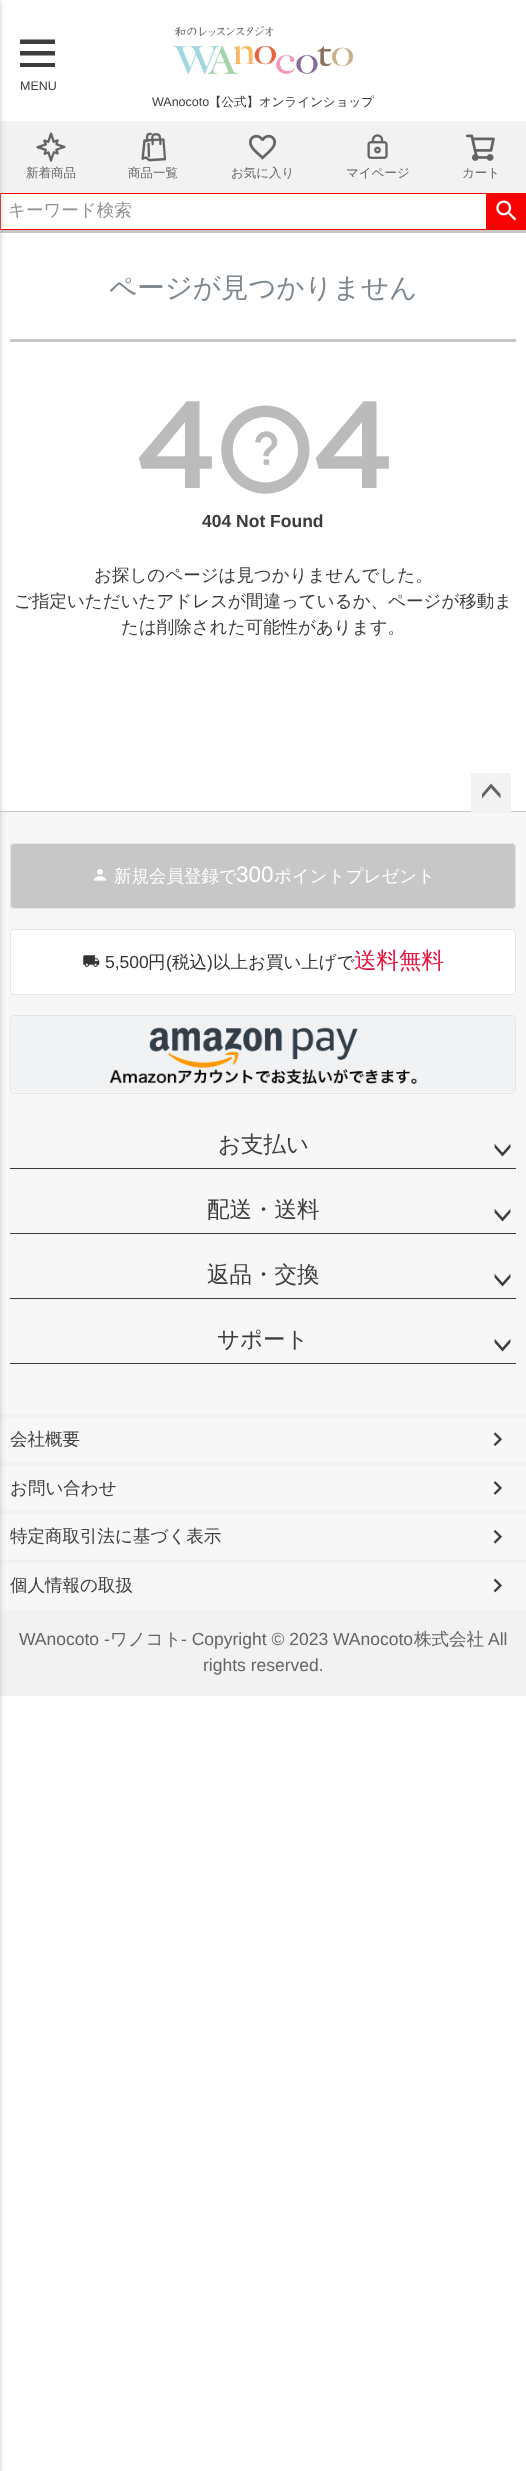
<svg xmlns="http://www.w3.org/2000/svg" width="526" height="2471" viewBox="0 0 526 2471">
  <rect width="100%" height="100%" fill="rgb(255,255,255)"/>
  <path d="M20 39.5H55V44H20ZM20 51H55V55.5H20ZM20 63H55V67H20Z" fill="rgb(60,60,60)"/>
  <text x="20" y="90" font-family="Liberation Sans" font-size="12.5" fill="rgb(60,60,60)">MENU</text>
  <image x="172" y="26" width="181" height="48" href="pic1.png"/>
  <text x="152" y="106" font-family="Liberation Sans" font-size="12.5" fill="rgb(60,60,60)">WAnocoto</text>
  <text x="209" y="106" font-family="WenQuanYi Zen Hei" font-size="12.5" font-weight="500" fill="rgb(60,60,60)">【公式】オンラインショップ</text>
  <rect x="0" y="121" width="526" height="72" fill="rgb(242,242,242)"/>
  <rect x="0" y="230" width="526" height="3" fill="rgb(199,199,199)"/>
  <image x="36" y="132" width="30" height="30" href="pic2.png"/>
  <text x="26" y="177" font-family="WenQuanYi Zen Hei" font-size="12.5" font-weight="500" fill="rgb(100,100,100)">新着商品</text>
  <image x="141" y="132" width="26" height="30" href="pic3.png"/>
  <text x="128" y="177" font-family="WenQuanYi Zen Hei" font-size="12.5" font-weight="500" fill="rgb(100,100,100)">商品一覧</text>
  <image x="249" y="134" width="27" height="26" href="pic4.png"/>
  <text x="231" y="177" font-family="WenQuanYi Zen Hei" font-size="12.5" font-weight="500" fill="rgb(100,100,100)">お気に入り</text>
  <image x="367" y="134" width="21" height="25" href="pic5.png"/>
  <text x="346" y="177" font-family="WenQuanYi Zen Hei" font-size="12.5" font-weight="500" fill="rgb(100,100,100)">マイページ</text>
  <image x="466" y="134" width="29" height="27" href="pic6.png"/>
  <text x="462" y="177" font-family="WenQuanYi Zen Hei" font-size="12.5" font-weight="500" fill="rgb(100,100,100)">カート</text>
  <rect x="0" y="193" width="526" height="37" fill="rgb(247,2,2)"/>
  <rect x="1" y="194" width="485" height="35" fill="rgb(255,255,255)"/>
  <text x="8" y="216" font-family="WenQuanYi Zen Hei" font-size="17.5" font-weight="500" fill="rgb(145,145,145)">キーワード検索</text>
  <image x="496" y="200" width="21" height="21" href="pic7.png"/>
  <rect x="0" y="812" width="526" height="797" fill="rgb(247,247,247)"/>
  <rect x="0" y="811" width="526" height="1" fill="rgb(199,199,199)"/>
  <rect x="0" y="1414" width="526" height="3" fill="rgb(242,242,242)"/>
  <rect x="0" y="1463" width="526" height="3" fill="rgb(242,242,242)"/>
  <rect x="0" y="1511" width="526" height="3" fill="rgb(242,242,242)"/>
  <rect x="0" y="1560" width="526" height="3" fill="rgb(242,242,242)"/>
  <rect x="0" y="1609" width="526" height="87" fill="rgb(242,242,242)"/>
  <rect x="-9" y="1" width="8" height="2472" fill="rgb(178,178,178)" filter="blur(3px)"/>
  <rect x="10" y="339" width="506" height="3" fill="rgb(199,199,199)"/>
  <text x="109" y="297" font-family="WenQuanYi Zen Hei" font-size="27.5" font-weight="500" fill="rgb(124,135,144)">ページが見つかりません</text>
  <image x="139" y="401" width="250" height="93" href="pic8.png"/>
  <text x="202" y="527" font-family="Liberation Sans" font-size="17.5" font-weight="bold" fill="rgb(60,60,60)">404 Not Found</text>
  <g font-family="WenQuanYi Zen Hei" font-size="17.5" font-weight="500" fill="rgb(60,60,60)">
    <text x="94" y="581">お探しのページは見つかりませんでした。</text>
    <text x="14" y="607">ご指定いただいたアドレスが間違っているか、ページが移動ま</text>
    <text x="121" y="633">たは削除された可能性があります。</text>
  </g>
  <rect x="471" y="773" width="40" height="40" fill="rgb(242,242,242)"/>
  <path d="M500.5 798.5L491 788L482 798.5V794L491 783.5L500.5 794Z" fill="rgb(100,100,100)"/>
  <rect x="10.5" y="843.5" width="505" height="65" rx="3.5" fill="rgb(199,199,199)" stroke="rgb(229,229,229)"/>
  <image x="94" y="869" width="12" height="12" href="pic9.png"/>
  <text x="114" y="882" font-family="WenQuanYi Zen Hei" font-size="17.5" font-weight="500" fill="rgb(255,255,255)">新規会員登録で</text>
  <text x="236" y="882" font-family="Liberation Sans" font-size="22.5" fill="rgb(255,255,255)">300</text>
  <text x="274" y="882" font-family="WenQuanYi Zen Hei" font-size="17.5" font-weight="500" fill="rgb(255,255,255)">ポイントプレゼント</text>
  <rect x="10.5" y="929.5" width="505" height="65" rx="3.5" fill="rgb(255,255,255)" stroke="rgb(229,229,229)"/>
  <image x="83" y="955" width="17" height="12" href="pic10.png"/>
  <text x="105" y="968" font-family="Liberation Sans" font-size="17.5" fill="rgb(51,51,51)">5,500</text>
  <text x="148" y="968" font-family="WenQuanYi Zen Hei" font-size="17.5" font-weight="500" fill="rgb(51,51,51)">円</text>
  <text x="166" y="968" font-family="Liberation Sans" font-size="17.5" fill="rgb(51,51,51)">(</text>
  <text x="172" y="968" font-family="WenQuanYi Zen Hei" font-size="17.5" font-weight="500" fill="rgb(51,51,51)">税込</text>
  <text x="207" y="968" font-family="Liberation Sans" font-size="17.5" fill="rgb(51,51,51)">)</text>
  <text x="213" y="968" font-family="WenQuanYi Zen Hei" font-size="17.5" font-weight="500" fill="rgb(51,51,51)">以上お買い上げで</text>
  <text x="354" y="968" font-family="WenQuanYi Zen Hei" font-size="22.5" font-weight="500" fill="rgb(226,19,61)">送料無料</text>
  <rect x="10.5" y="1015.5" width="505" height="78" rx="3.5" fill="rgb(255,255,255)" stroke="rgb(229,229,229)"/>
  <image x="11" y="1016" width="504" height="77" href="pic11.png"/>
  <rect x="10" y="1168" width="506" height="1" fill="rgb(60,60,60)"/>
  <text x="218" y="1152" font-family="WenQuanYi Zen Hei" font-size="22.5" font-weight="500" fill="rgb(60,60,60)">お支払い</text>
  <image x="494" y="1143" width="17" height="14" href="pic12.png"/>
  <rect x="10" y="1233" width="506" height="1" fill="rgb(60,60,60)"/>
  <text x="207" y="1217" font-family="WenQuanYi Zen Hei" font-size="22.5" font-weight="500" fill="rgb(60,60,60)">配送・送料</text>
  <image x="494" y="1208" width="17" height="14" href="pic12.png"/>
  <rect x="10" y="1298" width="506" height="1" fill="rgb(60,60,60)"/>
  <text x="207" y="1282" font-family="WenQuanYi Zen Hei" font-size="22.5" font-weight="500" fill="rgb(60,60,60)">返品・交換</text>
  <image x="494" y="1273" width="17" height="14" href="pic12.png"/>
  <rect x="10" y="1363" width="506" height="1" fill="rgb(60,60,60)"/>
  <text x="217" y="1347" font-family="WenQuanYi Zen Hei" font-size="22.5" font-weight="500" fill="rgb(60,60,60)">サポート</text>
  <image x="494" y="1338" width="17" height="14" href="pic12.png"/>
  <text x="10" y="1445" font-family="WenQuanYi Zen Hei" font-size="17.5" font-weight="500" fill="rgb(60,60,60)">会社概要</text>
  <image x="493" y="1432" width="9" height="14" href="pic13.png"/>
  <text x="10" y="1494" font-family="WenQuanYi Zen Hei" font-size="17.5" font-weight="500" fill="rgb(60,60,60)">お問い合わせ</text>
  <image x="493" y="1481" width="9" height="14" href="pic14.png"/>
  <text x="10" y="1542" font-family="WenQuanYi Zen Hei" font-size="17.5" font-weight="500" fill="rgb(60,60,60)">特定商取引法に基づく表示</text>
  <image x="493" y="1529" width="9" height="15" href="pic15.png"/>
  <text x="10" y="1591" font-family="WenQuanYi Zen Hei" font-size="17.5" font-weight="500" fill="rgb(60,60,60)">個人情報の取扱</text>
  <image x="493" y="1578" width="9" height="15" href="pic16.png"/>
  <text x="19" y="1645" font-family="Liberation Sans" font-size="17.5" fill="rgb(100,100,100)">WAnocoto -</text>
  <text x="110" y="1645" font-family="WenQuanYi Zen Hei" font-size="17.5" font-weight="500" fill="rgb(100,100,100)">ワノコト</text>
  <text x="181" y="1645" font-family="Liberation Sans" font-size="17.5" fill="rgb(100,100,100)">- Copyright © 2023 WAnocoto</text>
  <text x="414" y="1645" font-family="WenQuanYi Zen Hei" font-size="17.5" font-weight="500" fill="rgb(100,100,100)">株式会社</text>
  <g font-family="Liberation Sans" font-size="17.5" fill="rgb(100,100,100)">
    <text x="488" y="1645">All</text>
    <text x="203" y="1671">rights reserved.</text>
  </g>
</svg>
